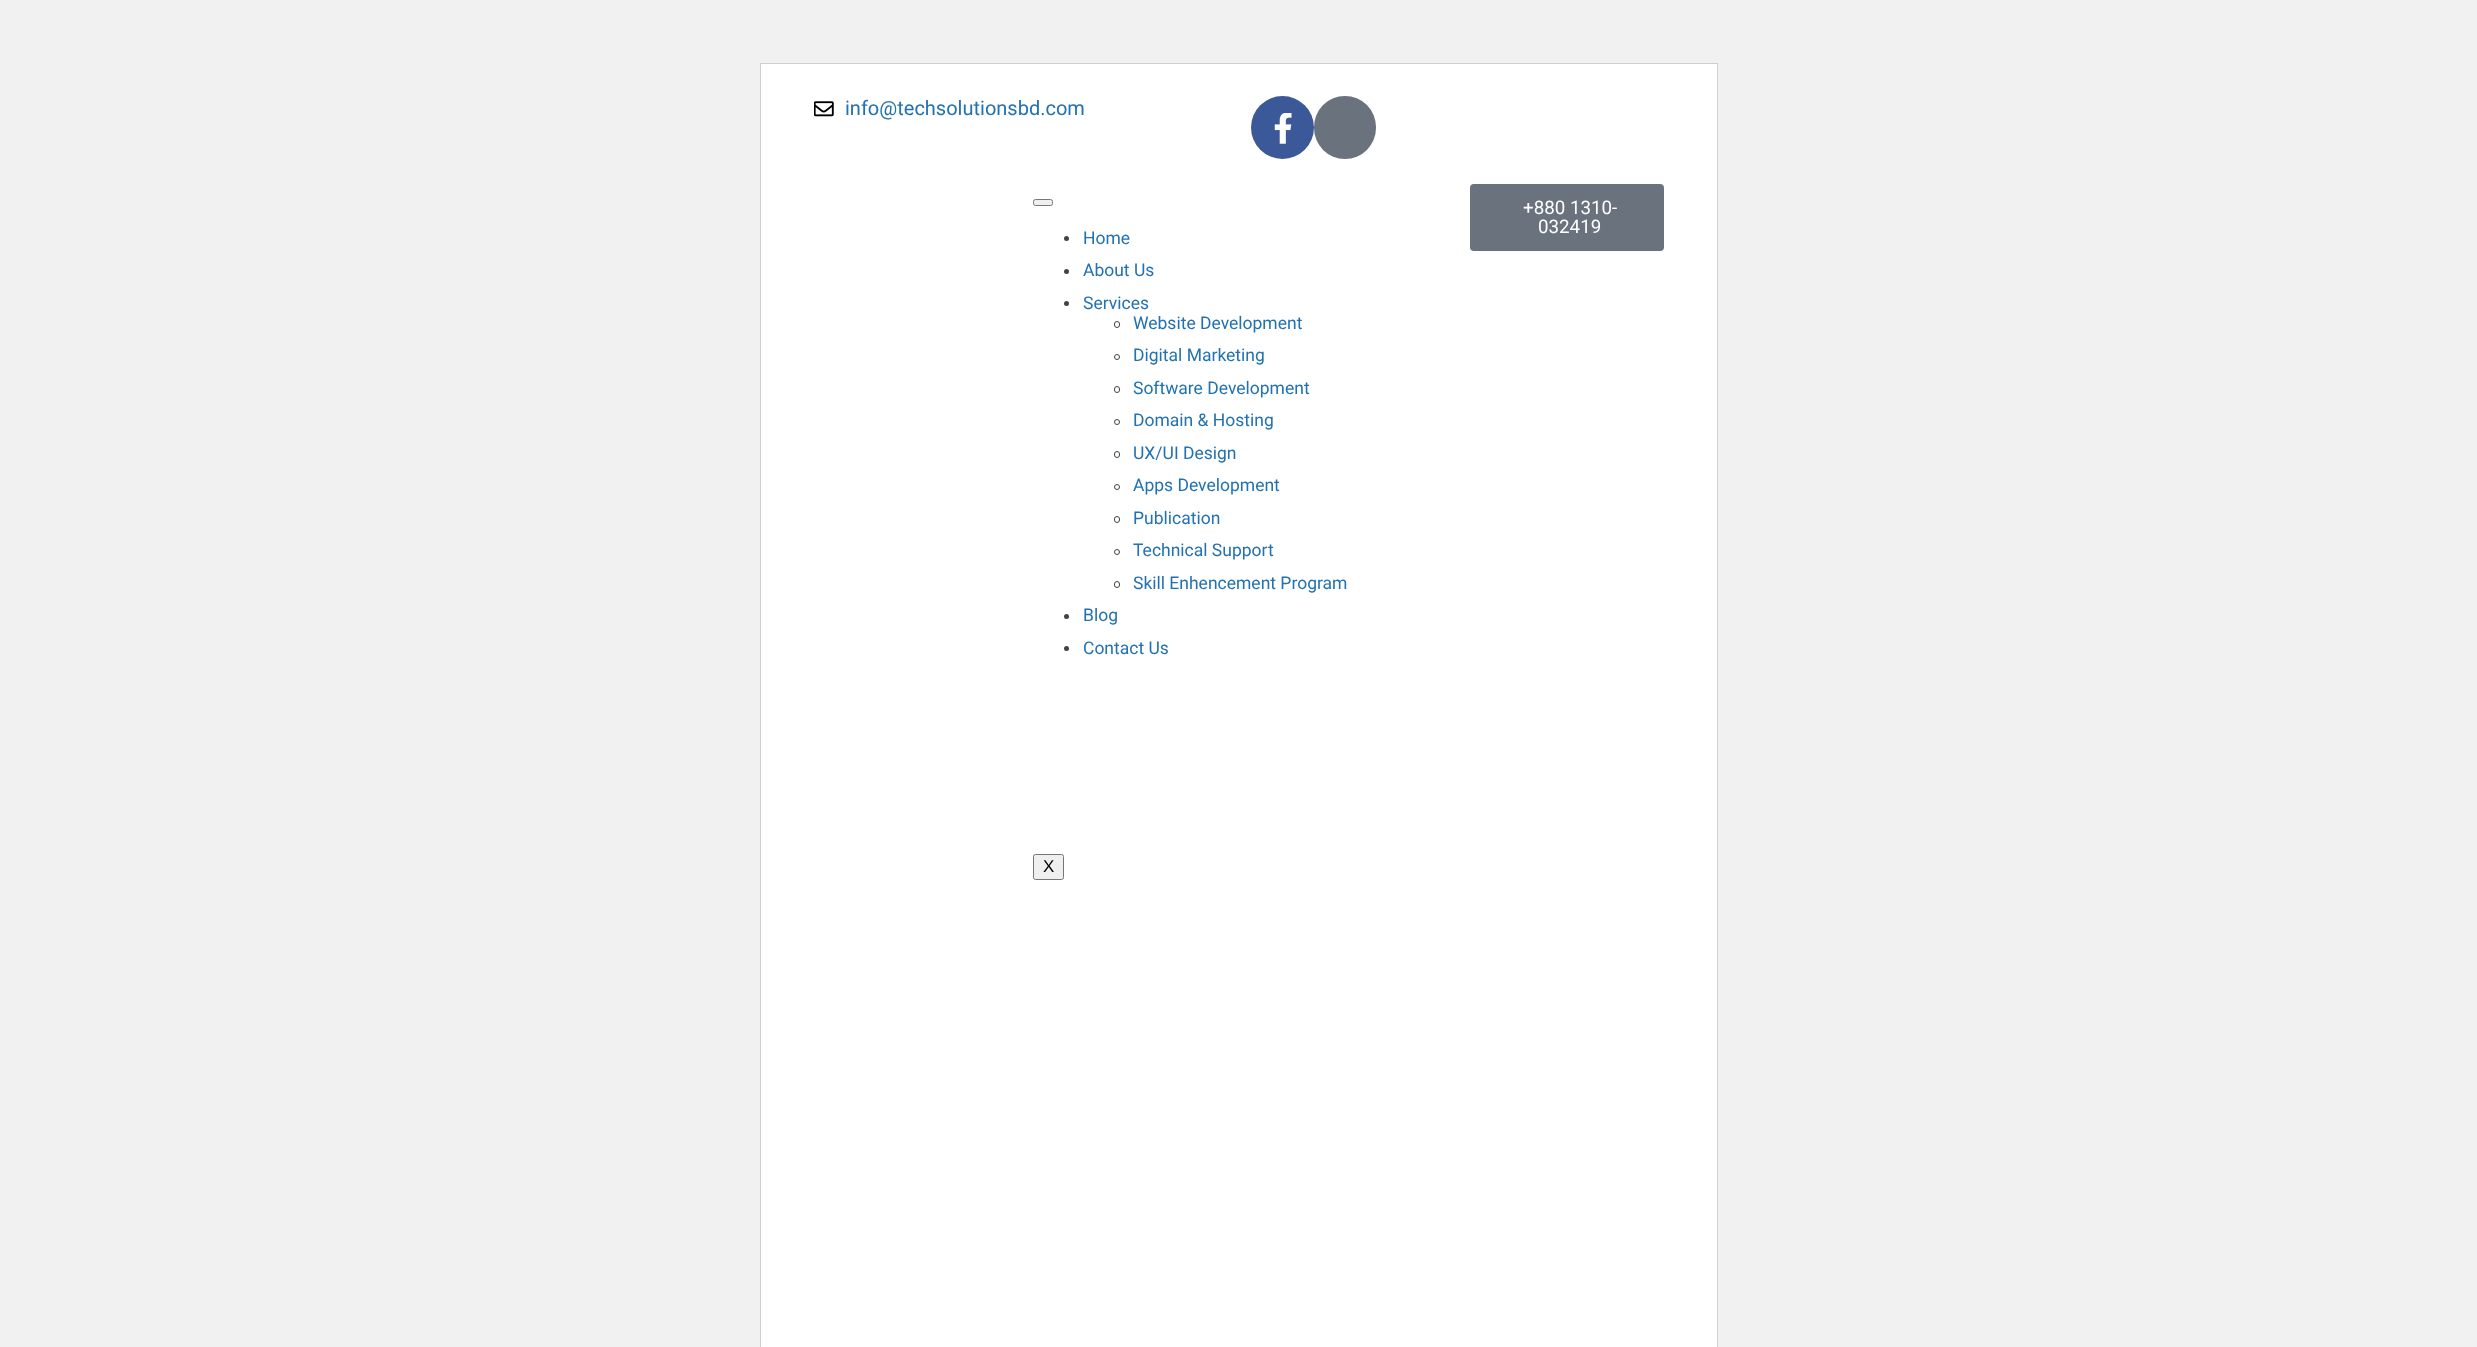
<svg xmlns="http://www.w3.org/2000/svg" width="2477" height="1347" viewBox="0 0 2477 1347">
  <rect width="100%" height="100%" fill="rgb(241,241,241)"/>
  <rect x="760.5" y="63.5" width="957" height="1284" fill="rgb(255,255,255)" stroke="rgb(204,208,212)"/>
  <image x="814" y="101" width="20" height="16" href="pic1.png"/>
  <text x="845" y="115" font-family="Roboto" font-size="20" fill="rgb(34,113,177)">info@techsolutionsbd.com</text>
  <circle cx="1282.5" cy="127.5" r="31.5" fill="rgb(59,89,152)"/>
  <image x="1274" y="113" width="18" height="31" href="pic2.png"/>
  <rect x="1314" y="96" width="62" height="63" rx="31" fill="rgb(105,114,125)"/>
  <rect x="1470" y="184" width="194" height="67" rx="4" fill="rgb(105,114,125)"/>
  <g font-family="Roboto" font-size="18.75" fill="rgb(255,255,255)">
    <text x="1523" y="214">+880 1310-</text>
    <text x="1538" y="233">032419</text>
  </g>
  <rect x="1033.5" y="199.5" width="19" height="6" rx="2" fill="rgb(239,239,239)" stroke="rgb(118,118,118)"/>
  <circle cx="1066.5" cy="238.5" r="2.5" fill="rgb(68,68,68)"/>
  <text x="1083" y="244" font-family="Roboto" font-size="17.5" fill="rgb(34,113,177)">Home</text>
  <circle cx="1066.5" cy="271.5" r="2.5" fill="rgb(68,68,68)"/>
  <text x="1083" y="276" font-family="Roboto" font-size="17.5" fill="rgb(34,113,177)">About Us</text>
  <circle cx="1066.5" cy="303.5" r="2.5" fill="rgb(68,68,68)"/>
  <text x="1083" y="309" font-family="Roboto" font-size="17.5" fill="rgb(34,113,177)">Services</text>
  <rect x="1114.5" y="321.5" width="5" height="6" rx="2.5" fill="none" stroke="rgb(68,68,68)"/>
  <text x="1133" y="329" font-family="Roboto" font-size="17.5" fill="rgb(34,113,177)">Website Development</text>
  <circle cx="1117" cy="357" r="2.5" fill="none" stroke="rgb(68,68,68)"/>
  <text x="1133" y="361" font-family="Roboto" font-size="17.5" fill="rgb(34,113,177)">Digital Marketing</text>
  <rect x="1114.5" y="386.5" width="5" height="6" rx="2.5" fill="none" stroke="rgb(68,68,68)"/>
  <text x="1133" y="394" font-family="Roboto" font-size="17.5" fill="rgb(34,113,177)">Software Development</text>
  <circle cx="1117" cy="422" r="2.5" fill="none" stroke="rgb(68,68,68)"/>
  <text x="1133" y="426" font-family="Roboto" font-size="17.5" fill="rgb(34,113,177)">Domain &amp; Hosting</text>
  <rect x="1114.5" y="451.5" width="5" height="6" rx="2.5" fill="none" stroke="rgb(68,68,68)"/>
  <text x="1133" y="459" font-family="Roboto" font-size="17.5" fill="rgb(34,113,177)">UX/UI Design</text>
  <circle cx="1117" cy="487" r="2.5" fill="none" stroke="rgb(68,68,68)"/>
  <text x="1133" y="491" font-family="Roboto" font-size="17.5" fill="rgb(34,113,177)">Apps Development</text>
  <rect x="1114.5" y="516.5" width="5" height="6" rx="2.5" fill="none" stroke="rgb(68,68,68)"/>
  <text x="1133" y="524" font-family="Roboto" font-size="17.5" fill="rgb(34,113,177)">Publication</text>
  <circle cx="1117" cy="552" r="2.5" fill="none" stroke="rgb(68,68,68)"/>
  <text x="1133" y="556" font-family="Roboto" font-size="17.5" fill="rgb(34,113,177)">Technical Support</text>
  <rect x="1114.5" y="581.5" width="5" height="6" rx="2.5" fill="none" stroke="rgb(68,68,68)"/>
  <text x="1133" y="589" font-family="Roboto" font-size="17.5" fill="rgb(34,113,177)">Skill Enhencement Program</text>
  <circle cx="1066.5" cy="616.5" r="2.5" fill="rgb(68,68,68)"/>
  <text x="1083" y="621" font-family="Roboto" font-size="17.5" fill="rgb(34,113,177)">Blog</text>
  <circle cx="1066.5" cy="648.5" r="2.5" fill="rgb(68,68,68)"/>
  <text x="1083" y="654" font-family="Roboto" font-size="17.5" fill="rgb(34,113,177)">Contact Us</text>
  <rect x="1033.5" y="854.5" width="30" height="25" rx="2" fill="rgb(239,239,239)" stroke="rgb(118,118,118)"/>
  <text x="1043" y="872" font-family="Liberation Sans" font-size="17" fill="rgb(0,0,0)">X</text>
</svg>
